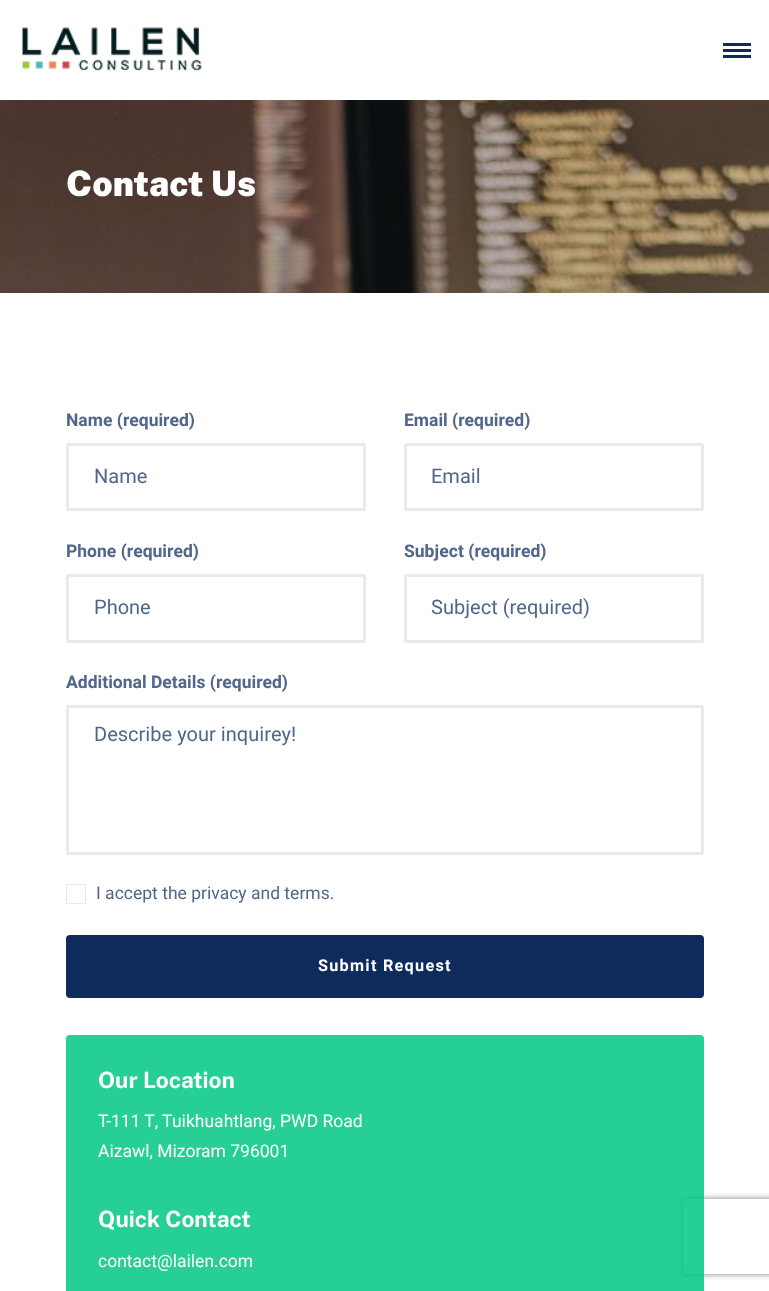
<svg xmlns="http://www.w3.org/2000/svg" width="769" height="1291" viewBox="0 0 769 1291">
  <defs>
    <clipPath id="clip1"><path d="M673 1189H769V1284H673ZM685.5 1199H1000.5C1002 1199 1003 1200 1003 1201.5V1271.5C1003 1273 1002 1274 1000.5 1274H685.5C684 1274 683 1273 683 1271.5V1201.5C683 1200 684 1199 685.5 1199Z" clip-rule="evenodd"/></clipPath>
  </defs>
  <rect width="100%" height="100%" fill="rgb(255,255,255)"/>
  <image x="22" y="27" width="180" height="44" href="pic1.png"/>
  <rect x="723" y="43" width="28" height="3" fill="rgb(14,43,92)"/>
  <rect x="723" y="49" width="28" height="3" fill="rgb(14,43,92)"/>
  <rect x="723" y="55" width="28" height="3" fill="rgb(14,43,92)"/>
  <image x="0" y="100" width="769" height="193" href="pic2.png"/>
  <text x="66" y="196" font-family="Public Sans" font-size="35" font-weight="900" fill="rgb(255,255,255)">Contact Us</text>
  <text x="66" y="426" font-family="Heebo" font-size="17.5" font-weight="bold" fill="rgb(81,102,138)">Name (required)</text>
  <rect x="67.5" y="444.5" width="297" height="65" rx="1" fill="none" stroke="rgb(231,235,239)" stroke-width="3"/>
  <text x="94" y="483" font-family="Heebo" font-size="20" fill="rgb(81,102,138)">Name</text>
  <text x="404" y="426" font-family="Heebo" font-size="17.5" font-weight="bold" fill="rgb(81,102,138)">Email (required)</text>
  <rect x="405.5" y="444.5" width="297" height="65" rx="1" fill="none" stroke="rgb(231,235,239)" stroke-width="3"/>
  <text x="431" y="483" font-family="Heebo" font-size="20" fill="rgb(81,102,138)">Email</text>
  <text x="66" y="557" font-family="Heebo" font-size="17.5" font-weight="bold" fill="rgb(81,102,138)">Phone (required)</text>
  <rect x="67.5" y="575.5" width="297" height="66" rx="1" fill="none" stroke="rgb(231,235,239)" stroke-width="3"/>
  <text x="94" y="614" font-family="Heebo" font-size="20" fill="rgb(81,102,138)">Phone</text>
  <text x="404" y="557" font-family="Heebo" font-size="17.5" font-weight="bold" fill="rgb(81,102,138)">Subject (required)</text>
  <rect x="405.5" y="575.5" width="297" height="66" rx="1" fill="none" stroke="rgb(231,235,239)" stroke-width="3"/>
  <text x="431" y="614" font-family="Heebo" font-size="20" fill="rgb(81,102,138)">Subject (required)</text>
  <text x="66" y="688" font-family="Heebo" font-size="17.5" font-weight="bold" fill="rgb(81,102,138)">Additional Details (required)</text>
  <rect x="67.5" y="706.5" width="635" height="147" rx="1" fill="none" stroke="rgb(231,235,239)" stroke-width="3"/>
  <text x="94" y="741" font-family="Heebo" font-size="20" fill="rgb(81,102,138)">Describe your inquirey!</text>
  <rect x="66.5" y="884.5" width="19" height="19" fill="none" stroke="rgb(231,235,239)"/>
  <text x="96" y="899" font-family="Heebo" font-size="17.5" fill="rgb(81,102,138)">I accept the privacy and terms.</text>
  <rect x="66" y="935" width="638" height="63" rx="4" fill="rgb(14,43,92)"/>
  <text x="318" y="971" font-family="Heebo" font-size="16.25" font-weight="bold" letter-spacing="1.25" fill="rgb(255,255,255)">Submit Request</text>
  <g clip-path="url(#clip1)">
    <rect x="683" y="1199" width="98" height="75" rx="2.5" fill="rgb(128,128,128)" filter="blur(3px)"/>
  </g>
  <rect x="66" y="1035" width="638" height="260" rx="4" fill="rgba(0,200,129,0.85)"/>
  <text x="98" y="1088" font-family="Public Sans" font-size="22.5" font-weight="bold" fill="rgb(255,255,255)">Our Location</text>
  <g font-family="Heebo" font-size="17.5" fill="rgb(255,255,255)">
    <text>
      <tspan x="98" y="1127">T-111 T, Tuikhuahtlang, PWD Road</tspan>
      <tspan x="98" y="1157">Aizawl, Mizoram 796001</tspan>
    </text>
  </g>
  <text x="98" y="1227" font-family="Public Sans" font-size="22.5" font-weight="bold" fill="rgb(255,255,255)">Quick Contact</text>
  <text x="98" y="1267" font-family="Heebo" font-size="17.5" fill="rgb(255,255,255)">contact@lailen.com</text>
</svg>
